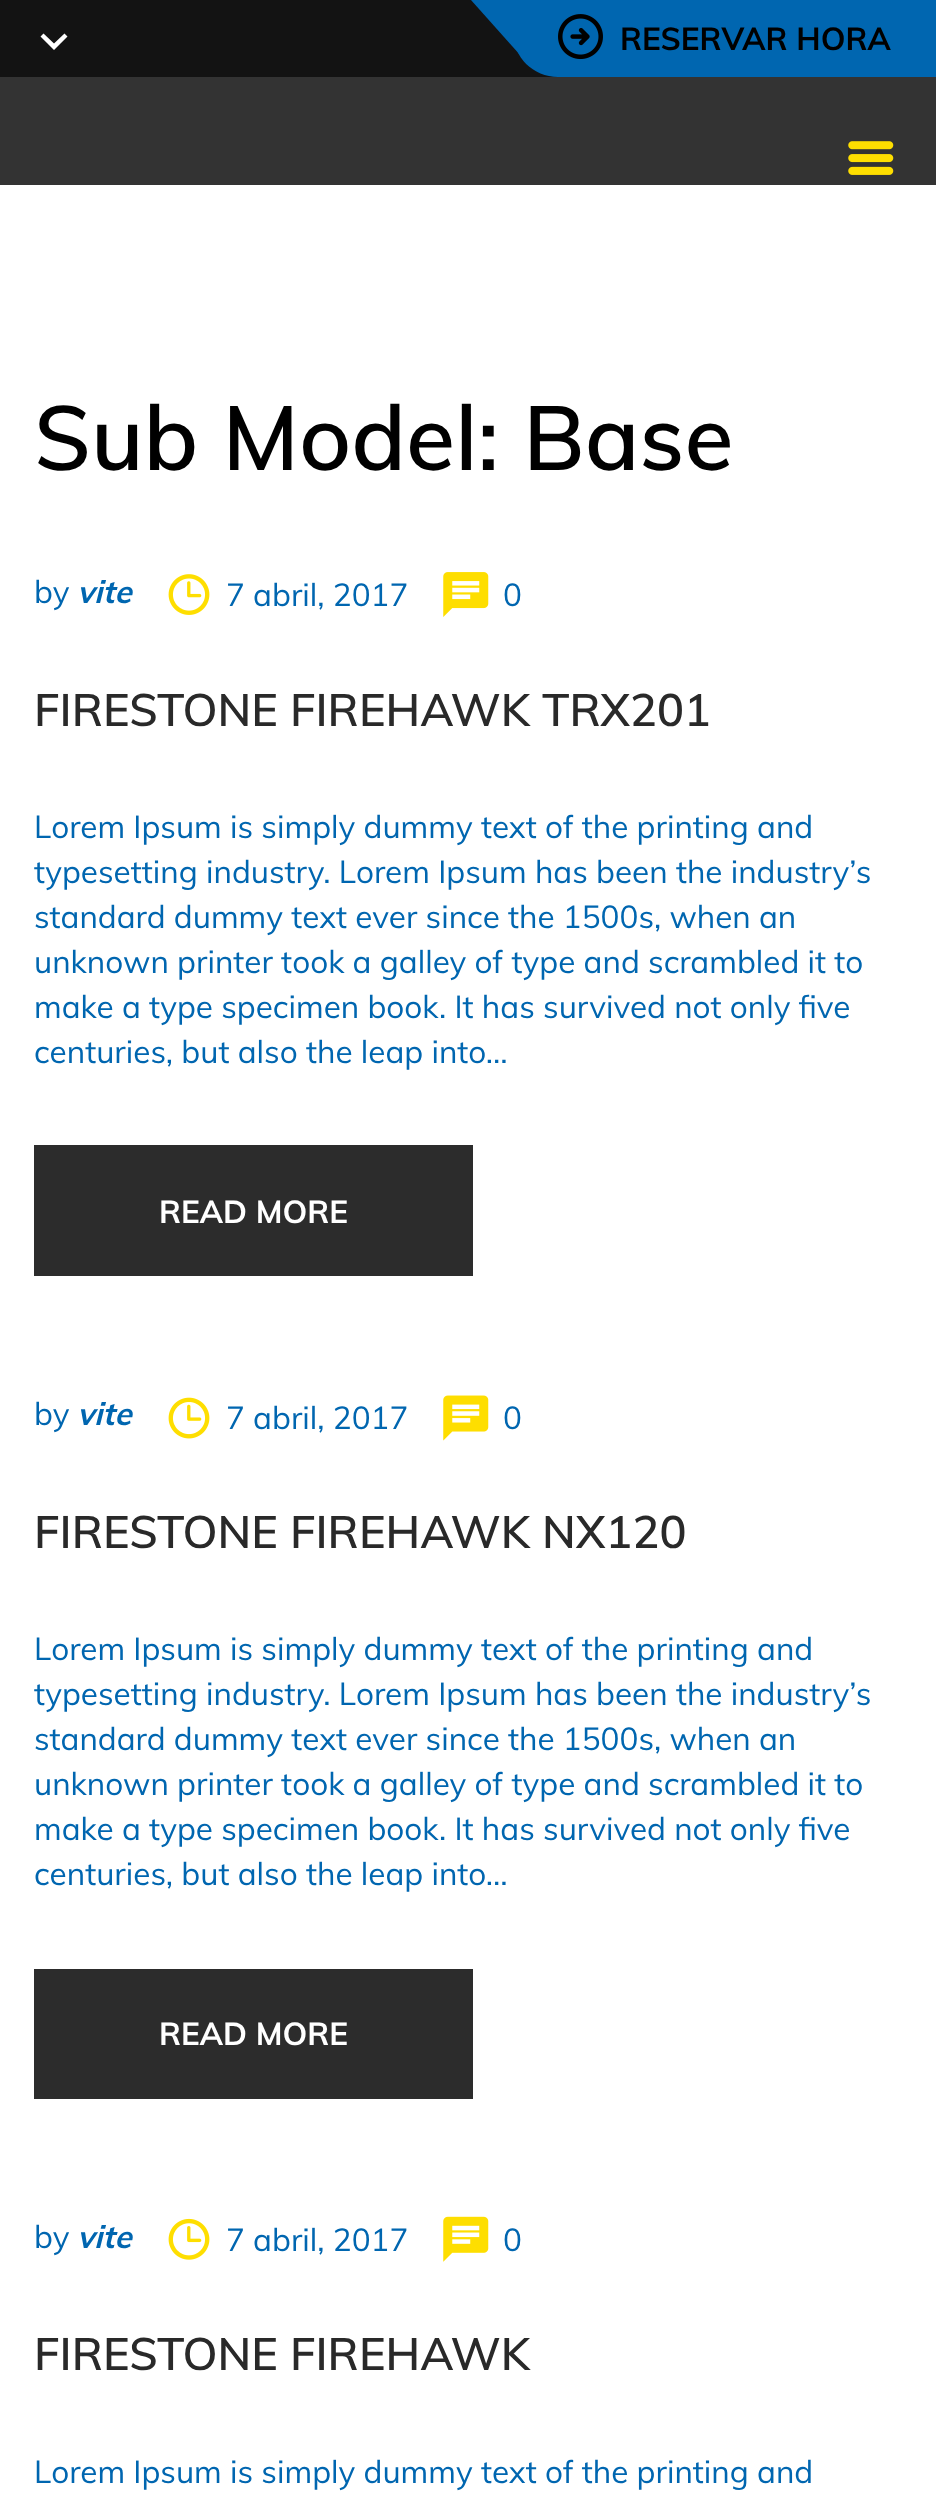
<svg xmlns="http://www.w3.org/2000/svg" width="936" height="2503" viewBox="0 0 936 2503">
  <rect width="100%" height="100%" fill="rgb(255,255,255)"/>
  <rect x="0" y="77" width="936" height="108" fill="rgb(51,51,51)"/>
  <rect x="0" y="0" width="558" height="77" fill="rgb(19,19,19)"/>
  <path d="M43.5 33.5L54 43.5L64.5 33.5L67.5 36.5L54 50L40.5 36.5Z" fill="rgb(255,255,255)"/>
  <path d="M513 0H936V77H558C533 77 513 57 513 32Z" fill="rgb(0,102,176)"/>
  <path d="M529-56V65L421-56Z" fill="rgb(0,102,176)"/>
  <image x="558" y="14" width="45" height="46" href="pic1.png"/>
  <text x="620" y="50" font-family="Muli" font-size="31.5" font-weight="bold" fill="rgb(0,0,0)">RESERVAR HORA</text>
  <image x="848" y="141" width="46" height="34" href="pic2.png"/>
  <text x="34" y="470" font-family="Muli" font-size="90" font-weight="600" fill="rgb(0,0,0)">Sub Model: Base</text>
  <text x="34" y="603" font-family="Muli" font-size="31.5" fill="rgb(0,102,176)">by</text>
  <text x="77" y="603" font-family="Muli" font-size="31.5" font-weight="bold" font-style="italic" fill="rgb(0,102,176)">vite</text>
  <image x="168" y="574" width="42" height="41" href="pic3.png"/>
  <text x="226" y="606" font-family="Muli" font-size="31.5" fill="rgb(0,102,176)">7 abril, 2017</text>
  <image x="443" y="572" width="46" height="45" href="pic4.png"/>
  <text x="503" y="606" font-family="Muli" font-size="31.5" fill="rgb(0,102,176)">0</text>
  <text x="34" y="726" font-family="Muli" font-size="45" font-weight="600" fill="rgb(41,41,41)">FIRESTONE FIREHAWK TRX201</text>
  <g font-family="Muli" font-size="31.5" fill="rgb(0,102,176)">
    <text>
      <tspan x="34" y="838">Lorem Ipsum is simply dummy text of the printing and</tspan>
      <tspan x="34" y="883">typesetting industry. Lorem Ipsum has been the industry’s</tspan>
      <tspan x="34" y="928">standard dummy text ever since the 1500s, when an</tspan>
      <tspan x="34" y="973">unknown printer took a galley of type and scrambled it to</tspan>
      <tspan x="34" y="1018">make a type specimen book. It has survived not only five</tspan>
      <tspan x="34" y="1063">centuries, but also the leap into…</tspan>
    </text>
  </g>
  <rect x="34" y="1145" width="439" height="131" fill="rgb(44,44,44)"/>
  <text x="159" y="1223" font-family="Muli" font-size="31.5" font-weight="bold" fill="rgb(255,255,255)">READ MORE</text>
  <text x="34" y="1425" font-family="Muli" font-size="31.5" fill="rgb(0,102,176)">by</text>
  <text x="77" y="1425" font-family="Muli" font-size="31.5" font-weight="bold" font-style="italic" fill="rgb(0,102,176)">vite</text>
  <image x="168" y="1397" width="42" height="42" href="pic5.png"/>
  <text x="226" y="1429" font-family="Muli" font-size="31.5" fill="rgb(0,102,176)">7 abril, 2017</text>
  <image x="443" y="1395" width="46" height="46" href="pic6.png"/>
  <text x="503" y="1429" font-family="Muli" font-size="31.5" fill="rgb(0,102,176)">0</text>
  <text x="34" y="1548" font-family="Muli" font-size="45" font-weight="600" fill="rgb(41,41,41)">FIRESTONE FIREHAWK NX120</text>
  <g font-family="Muli" font-size="31.5" fill="rgb(0,102,176)">
    <text>
      <tspan x="34" y="1660">Lorem Ipsum is simply dummy text of the printing and</tspan>
      <tspan x="34" y="1705">typesetting industry. Lorem Ipsum has been the industry’s</tspan>
      <tspan x="34" y="1750">standard dummy text ever since the 1500s, when an</tspan>
      <tspan x="34" y="1795">unknown printer took a galley of type and scrambled it to</tspan>
      <tspan x="34" y="1840">make a type specimen book. It has survived not only five</tspan>
      <tspan x="34" y="1885">centuries, but also the leap into…</tspan>
    </text>
  </g>
  <rect x="34" y="1969" width="439" height="130" fill="rgb(44,44,44)"/>
  <text x="159" y="2045" font-family="Muli" font-size="31.5" font-weight="bold" fill="rgb(255,255,255)">READ MORE</text>
  <text x="34" y="2248" font-family="Muli" font-size="31.5" fill="rgb(0,102,176)">by</text>
  <text x="77" y="2248" font-family="Muli" font-size="31.5" font-weight="bold" font-style="italic" fill="rgb(0,102,176)">vite</text>
  <image x="168" y="2218" width="42" height="42" href="pic7.png"/>
  <text x="226" y="2251" font-family="Muli" font-size="31.5" fill="rgb(0,102,176)">7 abril, 2017</text>
  <image x="443" y="2216" width="46" height="46" href="pic8.png"/>
  <text x="503" y="2251" font-family="Muli" font-size="31.5" fill="rgb(0,102,176)">0</text>
  <text x="34" y="2370" font-family="Muli" font-size="45" font-weight="600" fill="rgb(41,41,41)">FIRESTONE FIREHAWK</text>
  <text x="34" y="2483" font-family="Muli" font-size="31.5" fill="rgb(0,102,176)">Lorem Ipsum is simply dummy text of the printing and</text>
</svg>
